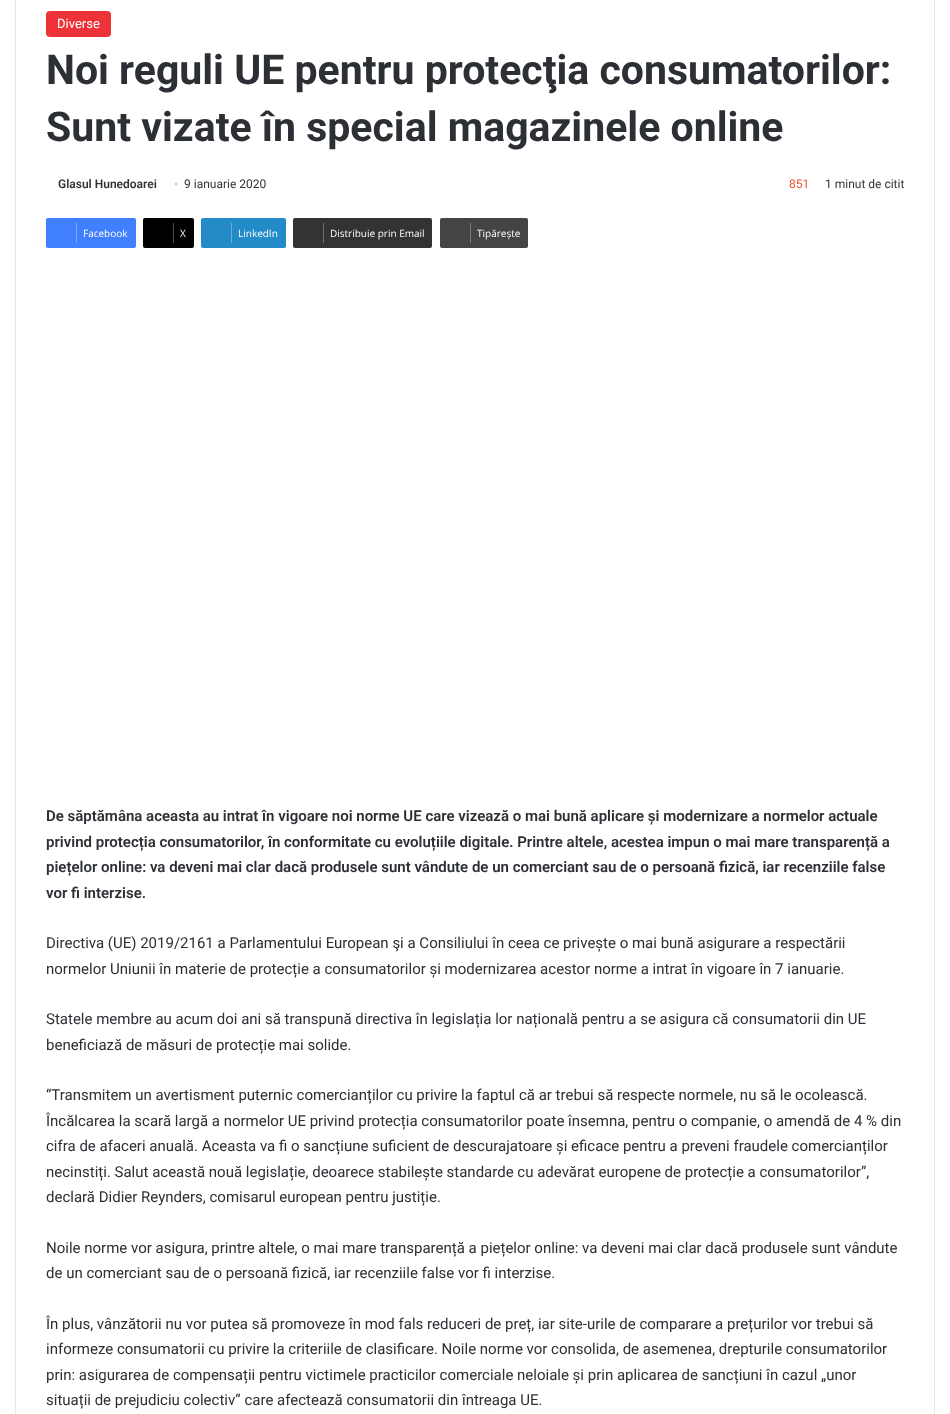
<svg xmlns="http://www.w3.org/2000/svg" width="950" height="1414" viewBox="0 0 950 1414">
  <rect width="100%" height="100%" fill="rgb(255,255,255)"/>
  <rect x="15.5" y="-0.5" width="919" height="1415" fill="none" stroke="rgb(230,230,230)"/>
  <rect x="46" y="11" width="65" height="26" rx="4" fill="rgb(237,51,56)"/>
  <text x="57" y="28" font-family="Roboto" font-size="13" fill="rgb(255,255,255)">Diverse</text>
  <g font-family="Roboto" font-size="41" font-weight="bold" fill="rgb(44,47,52)">
    <text>
      <tspan x="46" y="84">Noi reguli UE pentru protecţia consumatorilor:</tspan>
      <tspan x="46" y="141">Sunt vizate în special magazinele online</tspan>
    </text>
  </g>
  <text x="58" y="188" font-family="Roboto" font-size="12" font-weight="600" fill="rgb(51,51,51)">Glasul Hunedoarei</text>
  <text x="174" y="188" font-family="Liberation Serif" font-size="12" fill="rgb(204,204,204)">•</text>
  <text x="184" y="188" font-family="Roboto" font-size="12" fill="rgb(51,51,51)">9 ianuarie 2020</text>
  <text x="789" y="188" font-family="Roboto" font-size="12" fill="rgb(243,80,42)">851</text>
  <text x="825" y="188" font-family="Roboto" font-size="12" fill="rgb(51,51,51)">1 minut de citit</text>
  <rect x="46" y="218" width="90" height="30" rx="2" fill="rgb(64,128,255)"/>
  <rect x="76" y="223" width="1" height="20" fill="rgb(121,166,255)"/>
  <text x="83" y="237" font-family="Open Sans" font-size="10" fill="rgb(255,255,255)">Facebook</text>
  <rect x="143" y="218" width="51" height="30" rx="2" fill="rgb(0,0,0)"/>
  <rect x="173" y="223" width="1" height="20" fill="rgb(77,77,77)"/>
  <text x="180" y="237" font-family="Open Sans" font-size="10" fill="rgb(255,255,255)">X</text>
  <rect x="201" y="218" width="85" height="30" rx="2" fill="rgb(35,140,200)"/>
  <rect x="231" y="223" width="1" height="20" fill="rgb(101,175,217)"/>
  <text x="238" y="237" font-family="Open Sans" font-size="10" fill="rgb(255,255,255)">LinkedIn</text>
  <rect x="293" y="218" width="139" height="30" rx="2" fill="rgb(51,51,51)"/>
  <rect x="323" y="223" width="1" height="20" fill="rgb(112,112,112)"/>
  <text x="330" y="237" font-family="Open Sans" font-size="10" fill="rgb(255,255,255)">Distribuie prin Email</text>
  <rect x="440" y="218" width="88" height="30" rx="2" fill="rgb(68,68,68)"/>
  <rect x="470" y="223" width="1" height="20" fill="rgb(124,124,124)"/>
  <text x="477" y="237" font-family="Open Sans" font-size="10" fill="rgb(255,255,255)">Tipărește</text>
  <g font-family="Roboto" font-size="15" font-weight="600" fill="rgb(44,47,52)">
    <text>
      <tspan x="46" y="821">De săptămâna aceasta au intrat în vigoare noi norme UE care vizează o mai bună aplicare și modernizare a normelor actuale</tspan>
      <tspan x="46" y="847">privind protecția consumatorilor, în conformitate cu evoluțiile digitale. Printre altele, acestea impun o mai mare transparență a</tspan>
      <tspan x="46" y="872">piețelor online: va deveni mai clar dacă produsele sunt vândute de un comerciant sau de o persoană fizică, iar recenziile false</tspan>
      <tspan x="46" y="898">vor fi interzise.</tspan>
    </text>
  </g>
  <g font-family="Roboto" font-size="15" fill="rgb(44,47,52)">
    <text>
      <tspan x="46" y="948">Directiva (UE) 2019/2161 a Parlamentului European şi a Consiliului în ceea ce privește o mai bună asigurare a respectării</tspan>
      <tspan x="46" y="974">normelor Uniunii în materie de protecție a consumatorilor și modernizarea acestor norme a intrat în vigoare în 7 ianuarie.</tspan>
    </text>
    <text>
      <tspan x="46" y="1024">Statele membre au acum doi ani să transpună directiva în legislația lor națională pentru a se asigura că consumatorii din UE</tspan>
      <tspan x="46" y="1050">beneficiază de măsuri de protecție mai solide.</tspan>
    </text>
    <text>
      <tspan x="46" y="1100">“Transmitem un avertisment puternic comercianților cu privire la faptul că ar trebui să respecte normele, nu să le ocolească.</tspan>
      <tspan x="46" y="1126">Încălcarea la scară largă a normelor UE privind protecția consumatorilor poate însemna, pentru o companie, o amendă de 4 % din</tspan>
      <tspan x="46" y="1151">cifra de afaceri anuală. Aceasta va fi o sancțiune suficient de descurajatoare și eficace pentru a preveni fraudele comercianților</tspan>
      <tspan x="46" y="1177">necinstiți. Salut această nouă legislație, deoarece stabilește standarde cu adevărat europene de protecție a consumatorilor”,</tspan>
      <tspan x="46" y="1202">declară Didier Reynders, comisarul european pentru justiție.</tspan>
    </text>
    <text>
      <tspan x="46" y="1253">Noile norme vor asigura, printre altele, o mai mare transparență a piețelor online: va deveni mai clar dacă produsele sunt vândute</tspan>
      <tspan x="46" y="1278">de un comerciant sau de o persoană fizică, iar recenziile false vor fi interzise.</tspan>
    </text>
    <text>
      <tspan x="46" y="1329">În plus, vânzătorii nu vor putea să promoveze în mod fals reduceri de preț, iar site-urile de comparare a prețurilor vor trebui să</tspan>
      <tspan x="46" y="1354">informeze consumatorii cu privire la criteriile de clasificare. Noile norme vor consolida, de asemenea, drepturile consumatorilor</tspan>
      <tspan x="46" y="1380">prin: asigurarea de compensații pentru victimele practicilor comerciale neloiale și prin aplicarea de sancțiuni în cazul „unor</tspan>
      <tspan x="46" y="1405">situații de prejudiciu colectiv” care afectează consumatorii din întreaga UE.</tspan>
    </text>
  </g>
</svg>
